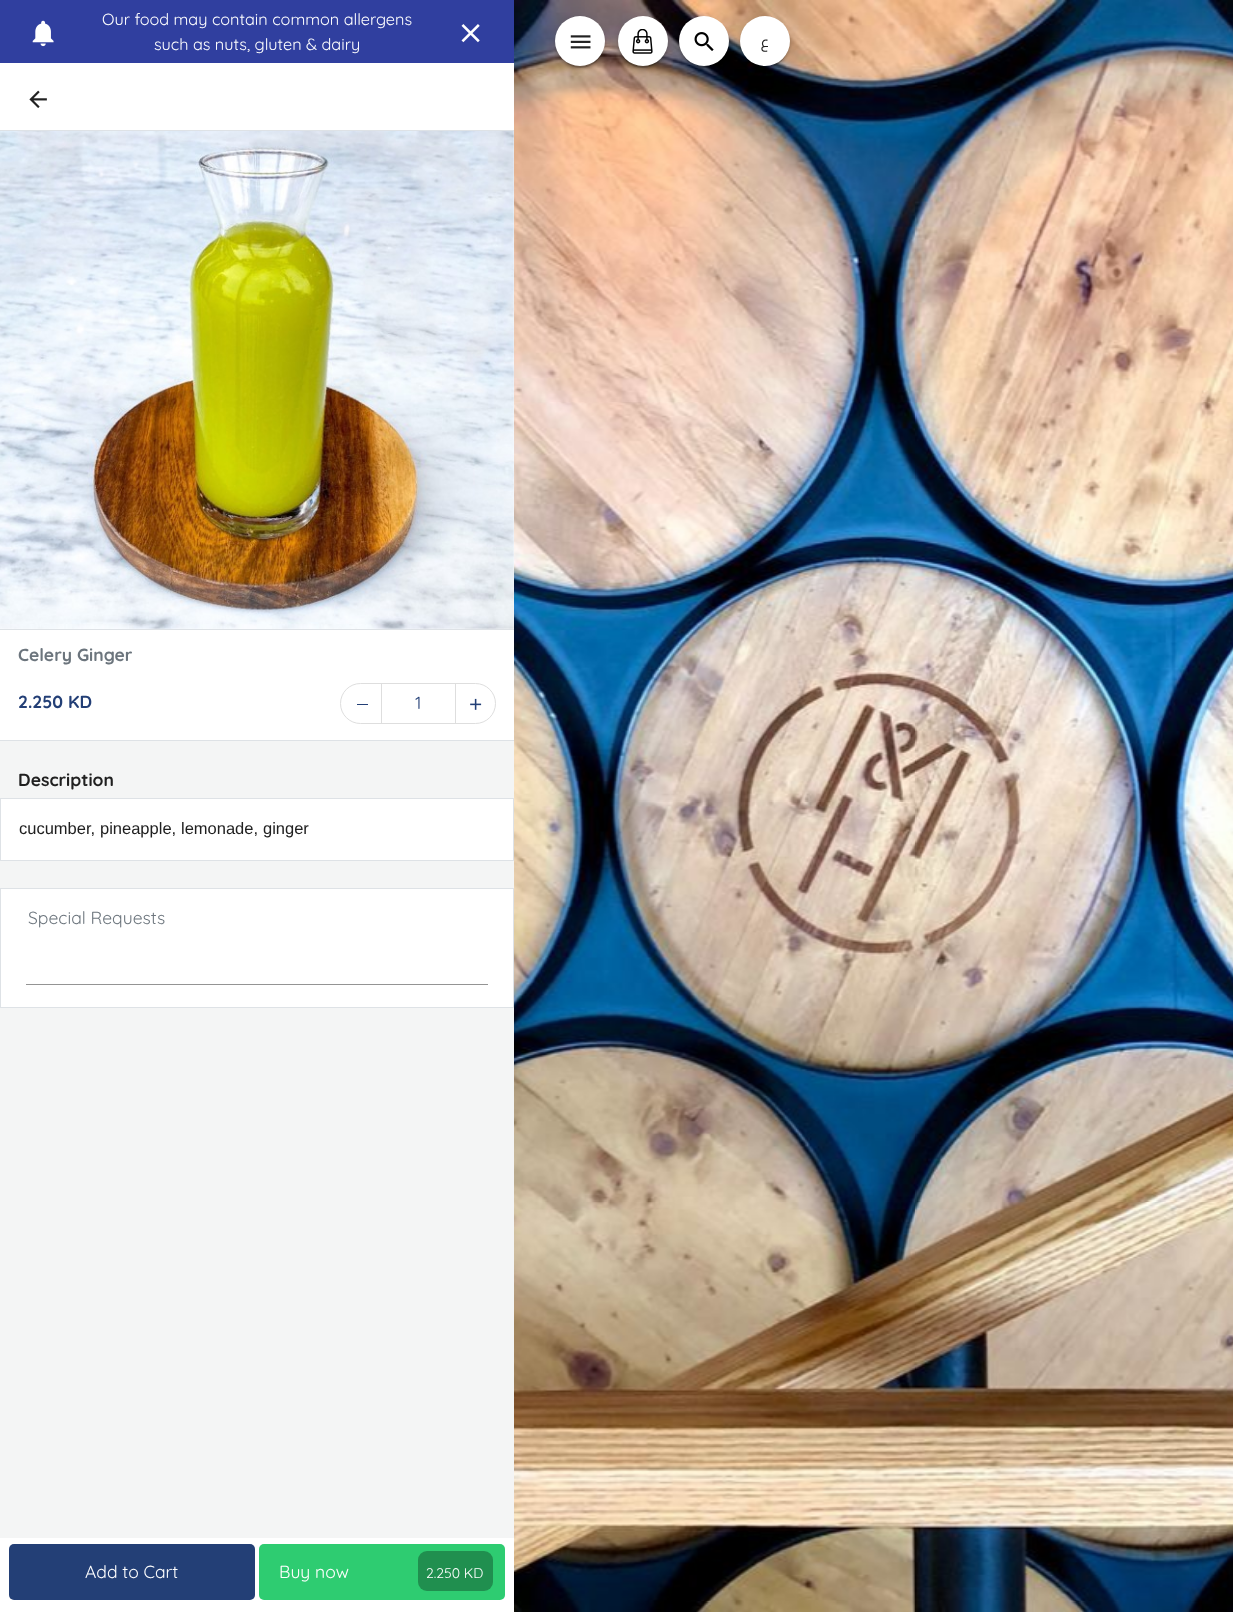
<svg xmlns="http://www.w3.org/2000/svg" width="1233" height="1612" viewBox="0 0 1233 1612">
  <rect width="100%" height="100%" fill="rgb(244,245,245)"/>
  <rect x="0" y="0" width="514" height="63" fill="rgb(48,63,159)"/>
  <image x="32" y="20" width="22" height="27" href="pic1.png"/>
  <g font-family="Quicksand" font-size="16.25" font-weight="300" fill="rgb(255,255,255)">
    <text x="102" y="25">Our food may contain common allergens</text>
    <text x="154" y="50">such as nuts, gluten &amp; dairy</text>
  </g>
  <image x="461" y="24" width="19" height="19" href="pic2.png"/>
  <rect x="0" y="63" width="514" height="67" fill="rgb(255,255,255)"/>
  <rect x="0" y="130" width="514" height="1" fill="rgb(222,226,230)"/>
  <image x="29" y="90" width="18" height="18" href="pic3.png"/>
  <rect x="0" y="131" width="514" height="498" fill="rgb(255,255,255)"/>
  <image x="0" y="131" width="514" height="498" href="pic4.png"/>
  <rect x="0" y="630" width="514" height="110" fill="rgb(255,255,255)"/>
  <rect x="0" y="629" width="514" height="1" fill="rgb(222,226,230)"/>
  <rect x="0" y="740" width="514" height="1" fill="rgb(222,226,230)"/>
  <text x="18" y="661" font-family="'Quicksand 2'" font-size="17.5" font-weight="300" fill="rgb(108,117,125)">Celery Ginger</text>
  <text x="18" y="708" font-family="'Quicksand 2'" font-size="17.5" font-weight="300" fill="rgb(35,63,118)">2.250 KD</text>
  <rect x="340.5" y="683.5" width="155" height="40" rx="20" fill="none" stroke="rgb(222,222,222)"/>
  <rect x="357" y="704" width="11" height="1" fill="rgb(35,63,118)"/>
  <rect x="455" y="683" width="1" height="40" fill="rgb(222,222,222)"/>
  <rect x="381" y="683" width="1" height="40" fill="rgb(222,222,222)"/>
  <text x="415" y="709" font-family="Quicksand" font-size="17.5" font-weight="300" fill="rgb(35,63,118)">1</text>
  <image x="470" y="698" width="12" height="12" href="pic5.png"/>
  <text x="18" y="786" font-family="'Quicksand 2'" font-size="17.5" font-weight="300" fill="rgb(32,32,32)">Description</text>
  <rect x="0.5" y="798.5" width="513" height="62" fill="rgb(255,255,255)" stroke="rgb(222,226,230)"/>
  <g font-family="Liberation Sans" font-size="16.5" fill="rgb(32,32,32)">
    <text x="19" y="834">cucumber,</text>
    <text x="100" y="834">pineapple,</text>
    <text x="181" y="834">lemonade,</text>
    <text x="263" y="834">ginger</text>
  </g>
  <rect x="0.5" y="888.5" width="513" height="119" fill="rgb(255,255,255)" stroke="rgb(222,226,230)"/>
  <text x="28" y="924" font-family="Quicksand" font-size="17.5" font-weight="300" fill="rgb(108,117,125)">Special Requests</text>
  <rect x="26" y="984" width="462" height="1" fill="rgb(148,148,148)"/>
  <rect x="0" y="1538" width="514" height="74" fill="rgb(255,255,255)"/>
  <rect x="9" y="1544" width="246" height="56" rx="5" fill="rgb(35,63,118)"/>
  <text x="85" y="1578" font-family="Quicksand" font-size="17.5" font-weight="300" fill="rgb(255,255,255)">Add to Cart</text>
  <rect x="259" y="1544" width="246" height="56" rx="5" fill="rgb(46,204,113)"/>
  <text x="279" y="1578" font-family="Quicksand" font-size="17.5" font-weight="300" fill="rgb(255,255,255)">Buy now</text>
  <rect x="418" y="1551" width="75" height="40" rx="9" fill="rgb(32,143,79)"/>
  <text x="426" y="1578" font-family="Quicksand" font-size="14" font-weight="300" fill="rgb(255,255,255)">2.250 KD</text>
  <image x="514" y="0" width="719" height="1612" href="pic6.png"/>
  <rect x="555" y="18" width="50" height="50" rx="25" fill="rgba(0,0,0,0.12)" filter="blur(3px)"/>
  <rect x="555" y="19" width="50" height="50" rx="25" fill="rgba(0,0,0,0.14)" filter="blur(1px)"/>
  <rect x="558" y="23" width="45" height="45" rx="22.5" fill="rgba(0,0,0,0.2)" filter="blur(0.5px)"/>
  <circle cx="580" cy="41" r="25" fill="rgb(255,255,255)"/>
  <image x="570" y="35" width="21" height="14" href="pic7.png"/>
  <rect x="618" y="18" width="50" height="50" rx="25" fill="rgba(0,0,0,0.12)" filter="blur(3px)"/>
  <rect x="618" y="19" width="50" height="50" rx="25" fill="rgba(0,0,0,0.14)" filter="blur(1px)"/>
  <rect x="620" y="23" width="45" height="45" rx="22.5" fill="rgba(0,0,0,0.2)" filter="blur(0.5px)"/>
  <circle cx="643" cy="41" r="25" fill="rgb(255,255,255)"/>
  <image x="632" y="29" width="21" height="25" href="pic8.png"/>
  <rect x="679" y="18" width="50" height="50" rx="25" fill="rgba(0,0,0,0.12)" filter="blur(3px)"/>
  <rect x="679" y="19" width="50" height="50" rx="25" fill="rgba(0,0,0,0.14)" filter="blur(1px)"/>
  <rect x="681" y="23" width="45" height="45" rx="22.5" fill="rgba(0,0,0,0.2)" filter="blur(0.5px)"/>
  <circle cx="704" cy="41" r="25" fill="rgb(255,255,255)"/>
  <image x="694" y="32" width="20" height="19" href="pic9.png"/>
  <rect x="740" y="18" width="50" height="50" rx="25" fill="rgba(0,0,0,0.12)" filter="blur(3px)"/>
  <rect x="740" y="19" width="50" height="50" rx="25" fill="rgba(0,0,0,0.14)" filter="blur(1px)"/>
  <rect x="743" y="23" width="45" height="45" rx="22.5" fill="rgba(0,0,0,0.2)" filter="blur(0.5px)"/>
  <circle cx="765" cy="41" r="25" fill="rgb(255,255,255)"/>
  <text x="769" y="47" font-family="Cairo" font-size="15" direction="rtl" fill="rgb(32,32,32)">ع</text>
</svg>
